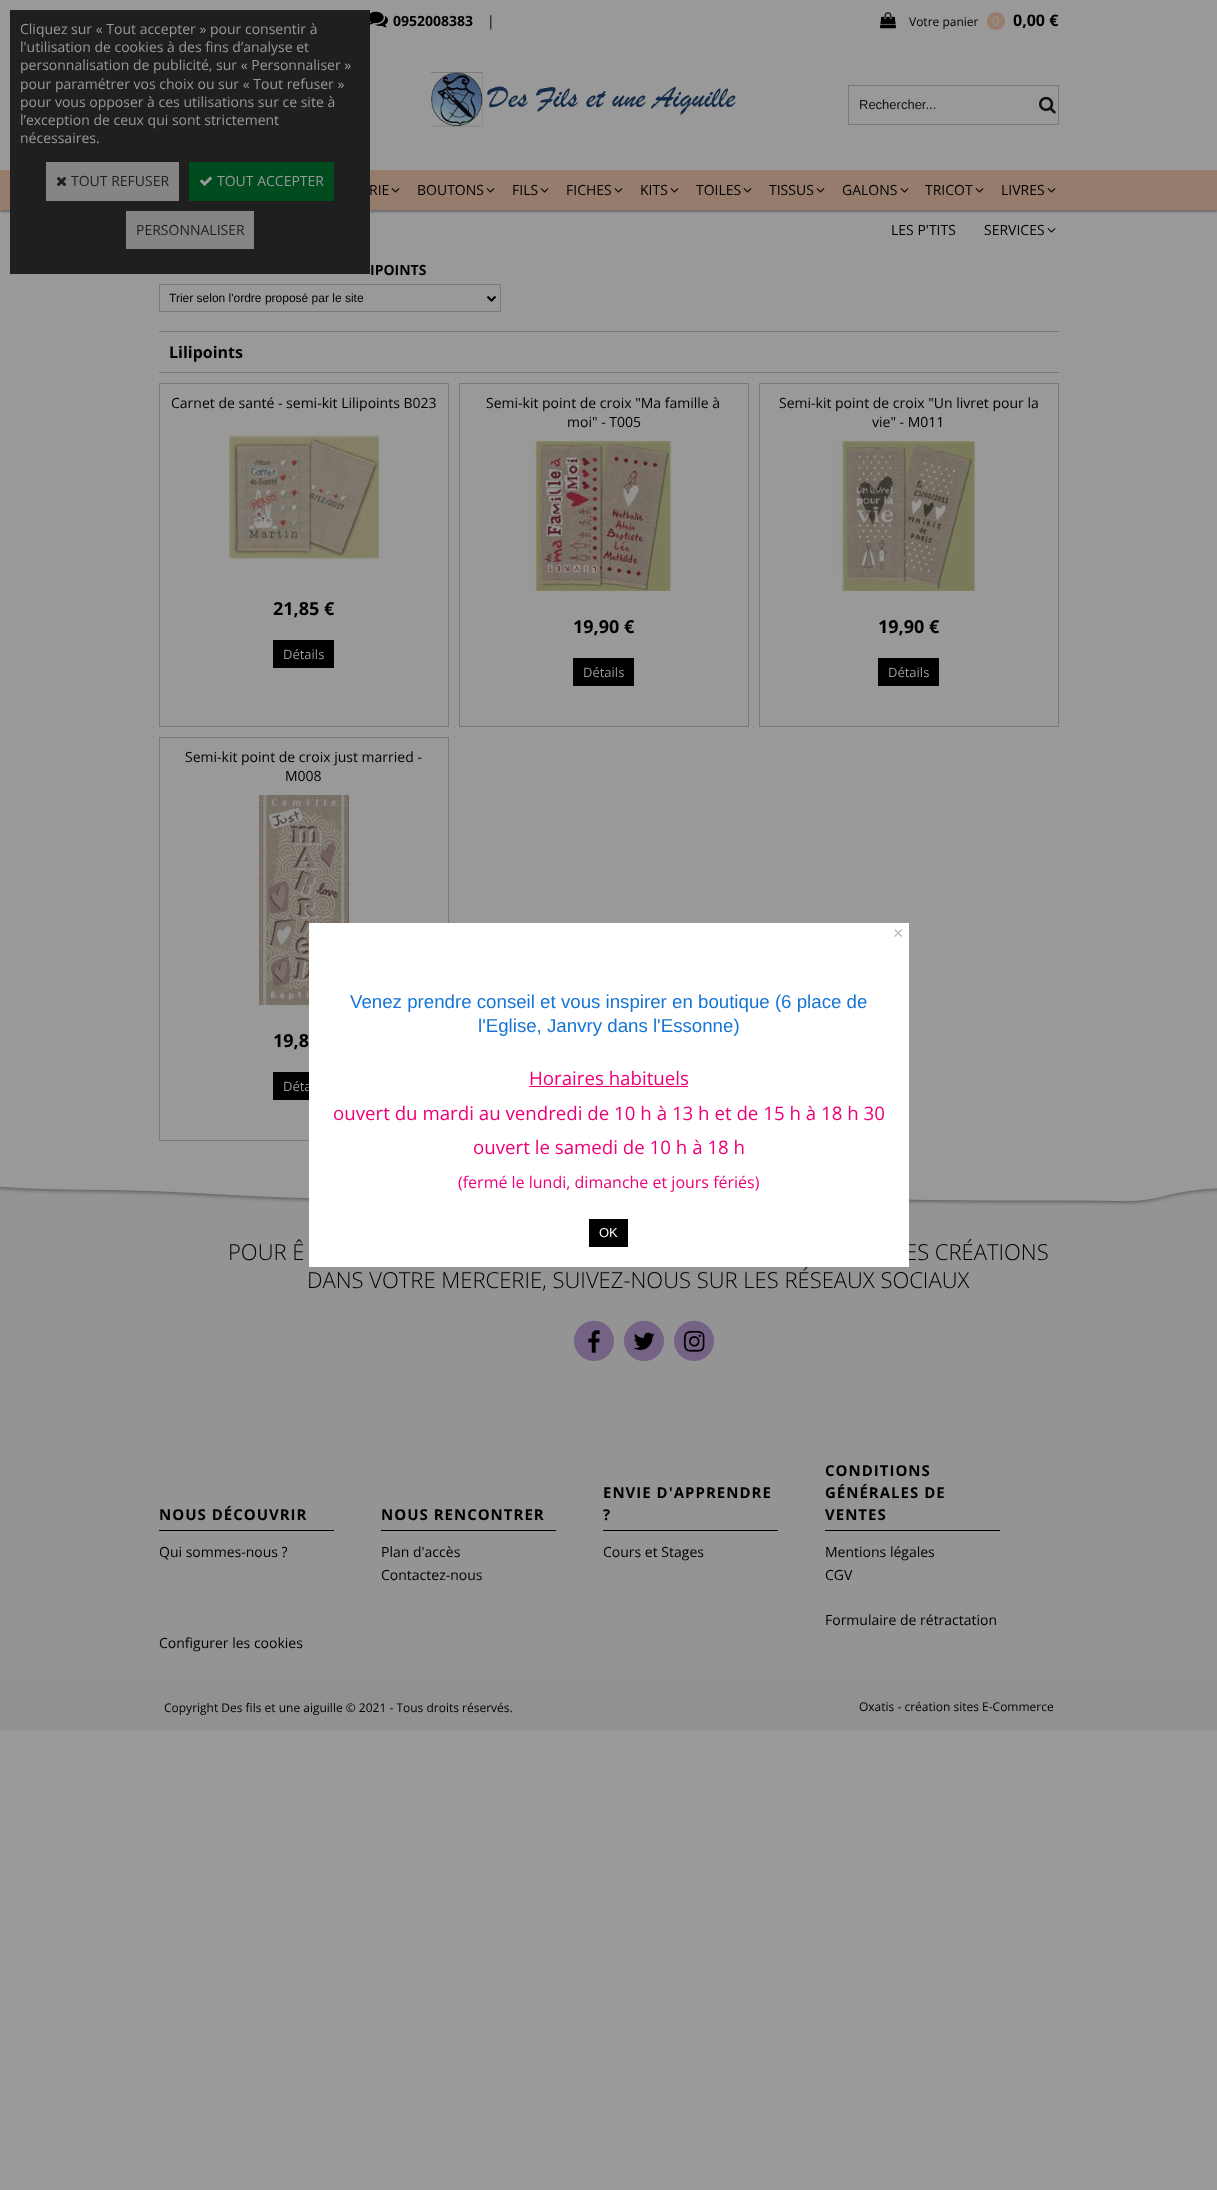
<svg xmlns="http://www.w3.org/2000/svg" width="1217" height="2190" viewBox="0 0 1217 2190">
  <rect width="100%" height="100%" fill="rgb(153,153,153)"/>
  <rect x="0" y="172" width="1217" height="40" fill="rgba(0,0,0,0.3)" filter="blur(1px)"/>
  <rect x="0" y="170" width="1217" height="40" fill="rgb(149,124,108)"/>
  <text x="369" y="195" font-family="Open Sans" font-size="14" fill="rgb(0,0,0)">RIE</text>
  <rect x="10" y="10" width="360" height="264" fill="rgb(31,31,31)"/>
  <g font-family="Open Sans" font-size="14" fill="rgb(153,153,153)">
    <text>
      <tspan x="20" y="34">Cliquez sur « Tout accepter » pour consentir à</tspan>
      <tspan x="20" y="52">l'utilisation de cookies à des fins d’analyse et</tspan>
      <tspan x="20" y="70">personnalisation de publicité, sur « Personnaliser »</tspan>
      <tspan x="20" y="89">pour paramétrer vos choix ou sur « Tout refuser »</tspan>
      <tspan x="20" y="107">pour vous opposer à ces utilisations sur ce site à</tspan>
      <tspan x="20" y="125">l’exception de ceux qui sont strictement</tspan>
      <tspan x="20" y="143">nécessaires.</tspan>
    </text>
  </g>
  <rect x="46" y="162" width="133" height="39" fill="rgb(133,133,133)"/>
  <image x="56" y="176" width="11" height="11" href="pic1.png"/>
  <text x="71" y="186" font-family="Open Sans" font-size="14" fill="rgb(31,31,31)">TOUT REFUSER</text>
  <rect x="189" y="162" width="145" height="39" fill="rgb(0,76,31)"/>
  <image x="200" y="176" width="12" height="10" href="pic2.png"/>
  <text x="217" y="186" font-family="Open Sans" font-size="14" fill="rgb(153,153,153)">TOUT ACCEPTER</text>
  <rect x="126" y="211" width="128" height="38" fill="rgb(133,133,133)"/>
  <text x="136" y="235" font-family="Open Sans" font-size="14" fill="rgb(31,31,31)">PERSONNALISER</text>
  <image x="370" y="11" width="18" height="17" href="pic3.png"/>
  <text x="393" y="26" font-family="Open Sans" font-size="14" font-weight="bold" fill="rgb(0,0,0)">0952008383</text>
  <text x="487" y="26" font-family="Open Sans" font-size="14" fill="rgb(0,0,0)">|</text>
  <image x="880" y="12" width="16" height="17" href="pic4.png"/>
  <text x="909" y="26" font-family="Open Sans" font-size="12" fill="rgb(0,0,0)">Votre panier</text>
  <circle cx="996" cy="21" r="9" fill="rgb(149,124,108)"/>
  <text x="992" y="26" font-family="Open Sans" font-size="13" fill="rgb(153,153,153)">0</text>
  <text x="1013" y="26" font-family="Open Sans" font-size="16" font-weight="bold" fill="rgb(0,0,0)">0,00 €</text>
  <image x="431" y="72" width="305" height="55" href="pic5.png"/>
  <rect x="848.5" y="85.5" width="210" height="39" fill="none" stroke="rgb(122,122,122)"/>
  <text x="859" y="109" font-family="Liberation Sans" font-size="13" fill="rgb(17,17,17)">Rechercher...</text>
  <image x="1039" y="96" width="17" height="18" href="pic6.png"/>
  <image x="391" y="188" width="9" height="5" href="pic7.png"/>
  <text x="417" y="195" font-family="Open Sans" font-size="14" fill="rgb(0,0,0)">BOUTONS</text>
  <image x="486" y="188" width="9" height="5" href="pic7.png"/>
  <text x="512" y="195" font-family="Open Sans" font-size="14" fill="rgb(0,0,0)">FILS</text>
  <image x="540" y="188" width="9" height="5" href="pic7.png"/>
  <text x="566" y="195" font-family="Open Sans" font-size="14" fill="rgb(0,0,0)">FICHES</text>
  <image x="614" y="188" width="9" height="5" href="pic7.png"/>
  <text x="640" y="195" font-family="Open Sans" font-size="14" fill="rgb(0,0,0)">KITS</text>
  <image x="670" y="188" width="9" height="5" href="pic7.png"/>
  <text x="696" y="195" font-family="Open Sans" font-size="14" fill="rgb(0,0,0)">TOILES</text>
  <image x="743" y="188" width="9" height="5" href="pic7.png"/>
  <text x="769" y="195" font-family="Open Sans" font-size="14" fill="rgb(0,0,0)">TISSUS</text>
  <image x="816" y="188" width="9" height="5" href="pic7.png"/>
  <text x="842" y="195" font-family="Open Sans" font-size="14" fill="rgb(0,0,0)">GALONS</text>
  <image x="900" y="188" width="9" height="5" href="pic7.png"/>
  <text x="925" y="195" font-family="Open Sans" font-size="14" fill="rgb(0,0,0)">TRICOT</text>
  <image x="975" y="188" width="9" height="5" href="pic7.png"/>
  <text x="1001" y="195" font-family="Open Sans" font-size="14" fill="rgb(0,0,0)">LIVRES</text>
  <image x="1047" y="188" width="9" height="5" href="pic7.png"/>
  <g font-family="Open Sans" font-size="14" fill="rgb(0,0,0)">
    <text x="891" y="235">LES P'TITS</text>
    <text x="984" y="235">SERVICES</text>
  </g>
  <image x="1047" y="228" width="9" height="5" href="pic8.png"/>
  <text x="370" y="275" font-family="Open Sans" font-size="14" font-weight="bold" fill="rgb(0,0,0)">IPOINTS</text>
  <rect x="159.5" y="284.5" width="341" height="27" fill="none" stroke="rgb(122,122,122)"/>
  <path d="M487.5 296.5L491.5 300.5L495.5 296.5" fill="none" stroke="rgb(0,0,0)" stroke-width="2"/>
  <text x="169" y="302" font-family="Liberation Sans" font-size="12" fill="rgb(0,0,0)">Trier selon l'ordre proposé par le site</text>
  <rect x="159" y="331" width="900" height="1" fill="rgb(122,122,122)"/>
  <rect x="159" y="372" width="900" height="1" fill="rgb(122,122,122)"/>
  <text x="169" y="358" font-family="Open Sans" font-size="16" font-weight="bold" fill="rgb(0,0,0)">Lilipoints</text>
  <rect x="159.5" y="383.5" width="289" height="343" fill="none" stroke="rgb(122,122,122)"/>
  <text x="171" y="408" font-family="Open Sans" font-size="14" fill="rgb(0,0,0)">Carnet de santé - semi-kit Lilipoints B023</text>
  <image x="229" y="432" width="150" height="129" href="pic9.png"/>
  <text x="273" y="615" font-family="Open Sans" font-size="18" font-weight="bold" fill="rgb(0,0,0)">21,85 €</text>
  <rect x="273" y="640" width="61" height="28" fill="rgb(0,0,0)"/>
  <text x="283" y="659" font-family="Open Sans" font-size="13" fill="rgb(153,153,153)">Détails</text>
  <rect x="459.5" y="383.5" width="289" height="343" fill="none" stroke="rgb(122,122,122)"/>
  <g font-family="Open Sans" font-size="14" fill="rgb(0,0,0)">
    <text x="486" y="408">Semi-kit point de croix "Ma famille à</text>
    <text x="567" y="427">moi" - T005</text>
  </g>
  <image x="529" y="441" width="144" height="150" href="pic10.png"/>
  <text x="573" y="633" font-family="Open Sans" font-size="18" font-weight="bold" fill="rgb(0,0,0)">19,90 €</text>
  <rect x="573" y="658" width="61" height="28" fill="rgb(0,0,0)"/>
  <text x="583" y="677" font-family="Open Sans" font-size="13" fill="rgb(153,153,153)">Détails</text>
  <rect x="759.5" y="383.5" width="299" height="343" fill="none" stroke="rgb(122,122,122)"/>
  <g font-family="Open Sans" font-size="14" fill="rgb(0,0,0)">
    <text x="779" y="408">Semi-kit point de croix "Un livret pour la</text>
    <text x="872" y="427">vie" - M011</text>
  </g>
  <image x="834" y="441" width="144" height="150" href="pic11.png"/>
  <text x="878" y="633" font-family="Open Sans" font-size="18" font-weight="bold" fill="rgb(0,0,0)">19,90 €</text>
  <rect x="878" y="658" width="61" height="28" fill="rgb(0,0,0)"/>
  <text x="888" y="677" font-family="Open Sans" font-size="13" fill="rgb(153,153,153)">Détails</text>
  <rect x="159.5" y="737.5" width="289" height="403" fill="none" stroke="rgb(122,122,122)"/>
  <g font-family="Open Sans" font-size="14" fill="rgb(0,0,0)">
    <text x="185" y="762">Semi-kit point de croix just married -</text>
    <text x="285" y="781">M008</text>
  </g>
  <image x="259" y="795" width="90" height="210" href="pic12.png"/>
  <text x="273" y="1047" font-family="Open Sans" font-size="18" font-weight="bold" fill="rgb(0,0,0)">19,8</text>
  <rect x="273" y="1072" width="36" height="28" fill="rgb(0,0,0)"/>
  <text x="283" y="1091" font-family="Open Sans" font-size="13" fill="rgb(153,153,153)">Déta</text>
  <rect x="0" y="1207" width="1217" height="473" fill="rgb(148,148,148)"/>
  <image x="0" y="1171" width="1217" height="36" href="pic13.png"/>
  <g font-family="Open Sans" font-size="22" font-weight="300" fill="rgb(0,0,0)">
    <text x="228" y="1260">POUR Ê</text>
    <text x="905" y="1260">ES CRÉATIONS</text>
    <text x="307" y="1288">DANS VOTRE MERCERIE, SUIVEZ-NOUS SUR LES RÉSEAUX SOCIAUX</text>
  </g>
  <image x="574" y="1320" width="40" height="41" href="pic14.png"/>
  <image x="624" y="1320" width="40" height="41" href="pic15.png"/>
  <image x="674" y="1320" width="40" height="41" href="pic16.png"/>
  <rect x="159" y="1530" width="175" height="1" fill="rgb(0,0,0)"/>
  <text x="159" y="1520" font-family="Open Sans" font-size="15" font-weight="bold" letter-spacing="1" fill="rgb(0,0,0)">NOUS DÉCOUVRIR</text>
  <rect x="381" y="1530" width="175" height="1" fill="rgb(0,0,0)"/>
  <text x="381" y="1520" font-family="Open Sans" font-size="15" font-weight="bold" letter-spacing="1" fill="rgb(0,0,0)">NOUS RENCONTRER</text>
  <rect x="603" y="1530" width="175" height="1" fill="rgb(0,0,0)"/>
  <g font-family="Open Sans" font-size="15" font-weight="bold" letter-spacing="1" fill="rgb(0,0,0)">
    <text>
      <tspan x="603" y="1498">ENVIE D'APPRENDRE</tspan>
      <tspan x="603" y="1520">?</tspan>
    </text>
  </g>
  <rect x="825" y="1530" width="175" height="1" fill="rgb(0,0,0)"/>
  <g font-family="Open Sans" font-size="15" font-weight="bold" letter-spacing="1" fill="rgb(0,0,0)">
    <text>
      <tspan x="825" y="1476">CONDITIONS</tspan>
      <tspan x="825" y="1498">GÉNÉRALES DE</tspan>
      <tspan x="825" y="1520">VENTES</tspan>
    </text>
  </g>
  <g font-family="Open Sans" font-size="14" fill="rgb(0,0,0)">
    <text x="159" y="1557">Qui sommes-nous ?</text>
    <text x="381" y="1557">Plan d'accès</text>
    <text x="603" y="1557">Cours et Stages</text>
    <text x="825" y="1557">Mentions légales</text>
    <text x="381" y="1580">Contactez-nous</text>
    <text x="825" y="1580">CGV</text>
    <text x="825" y="1625">Formulaire de rétractation</text>
    <text x="159" y="1648">Configurer les cookies</text>
  </g>
  <rect x="0" y="1680" width="1217" height="50" fill="rgb(145,145,145)"/>
  <g font-family="Open Sans" font-size="12" fill="rgb(0,0,0)">
    <text x="164" y="1712">Copyright Des fils et une aiguille © 2021 - Tous droits réservés.</text>
    <text x="859" y="1711">Oxatis - création sites E-Commerce</text>
  </g>
  <rect x="309" y="923" width="600" height="344" fill="rgb(255,255,255)"/>
  <text x="893" y="939" font-family="Liberation Sans" font-size="18" fill="rgb(187,187,187)">×</text>
  <g font-family="Liberation Sans" font-size="18.7" fill="rgb(21,116,212)">
    <text x="350" y="1008">Venez prendre conseil et vous inspirer en boutique (6 place de</text>
    <text x="478" y="1032">l'Eglise, Janvry dans l'Essonne)</text>
  </g>
  <text x="529" y="1085" font-family="Open Sans" font-size="18.7" fill="rgb(239,0,120)">Horaires habituels</text>
  <rect x="529" y="1086" width="159" height="1" fill="rgb(239,0,120)"/>
  <g font-family="Open Sans" font-size="18.7" fill="rgb(239,0,120)">
    <text x="333" y="1120">ouvert du mardi au vendredi de 10 h à 13 h et de 15 h à 18 h 30</text>
    <text x="473" y="1154">ouvert le samedi de 10 h à 18 h</text>
  </g>
  <text x="458" y="1188" font-family="Open Sans" font-size="16" fill="rgb(239,0,120)">(fermé le lundi, dimanche et jours fériés)</text>
  <rect x="589" y="1219" width="39" height="28" fill="rgb(0,0,0)"/>
  <text x="599" y="1237" font-family="Liberation Sans" font-size="13" fill="rgb(255,255,255)">OK</text>
</svg>
